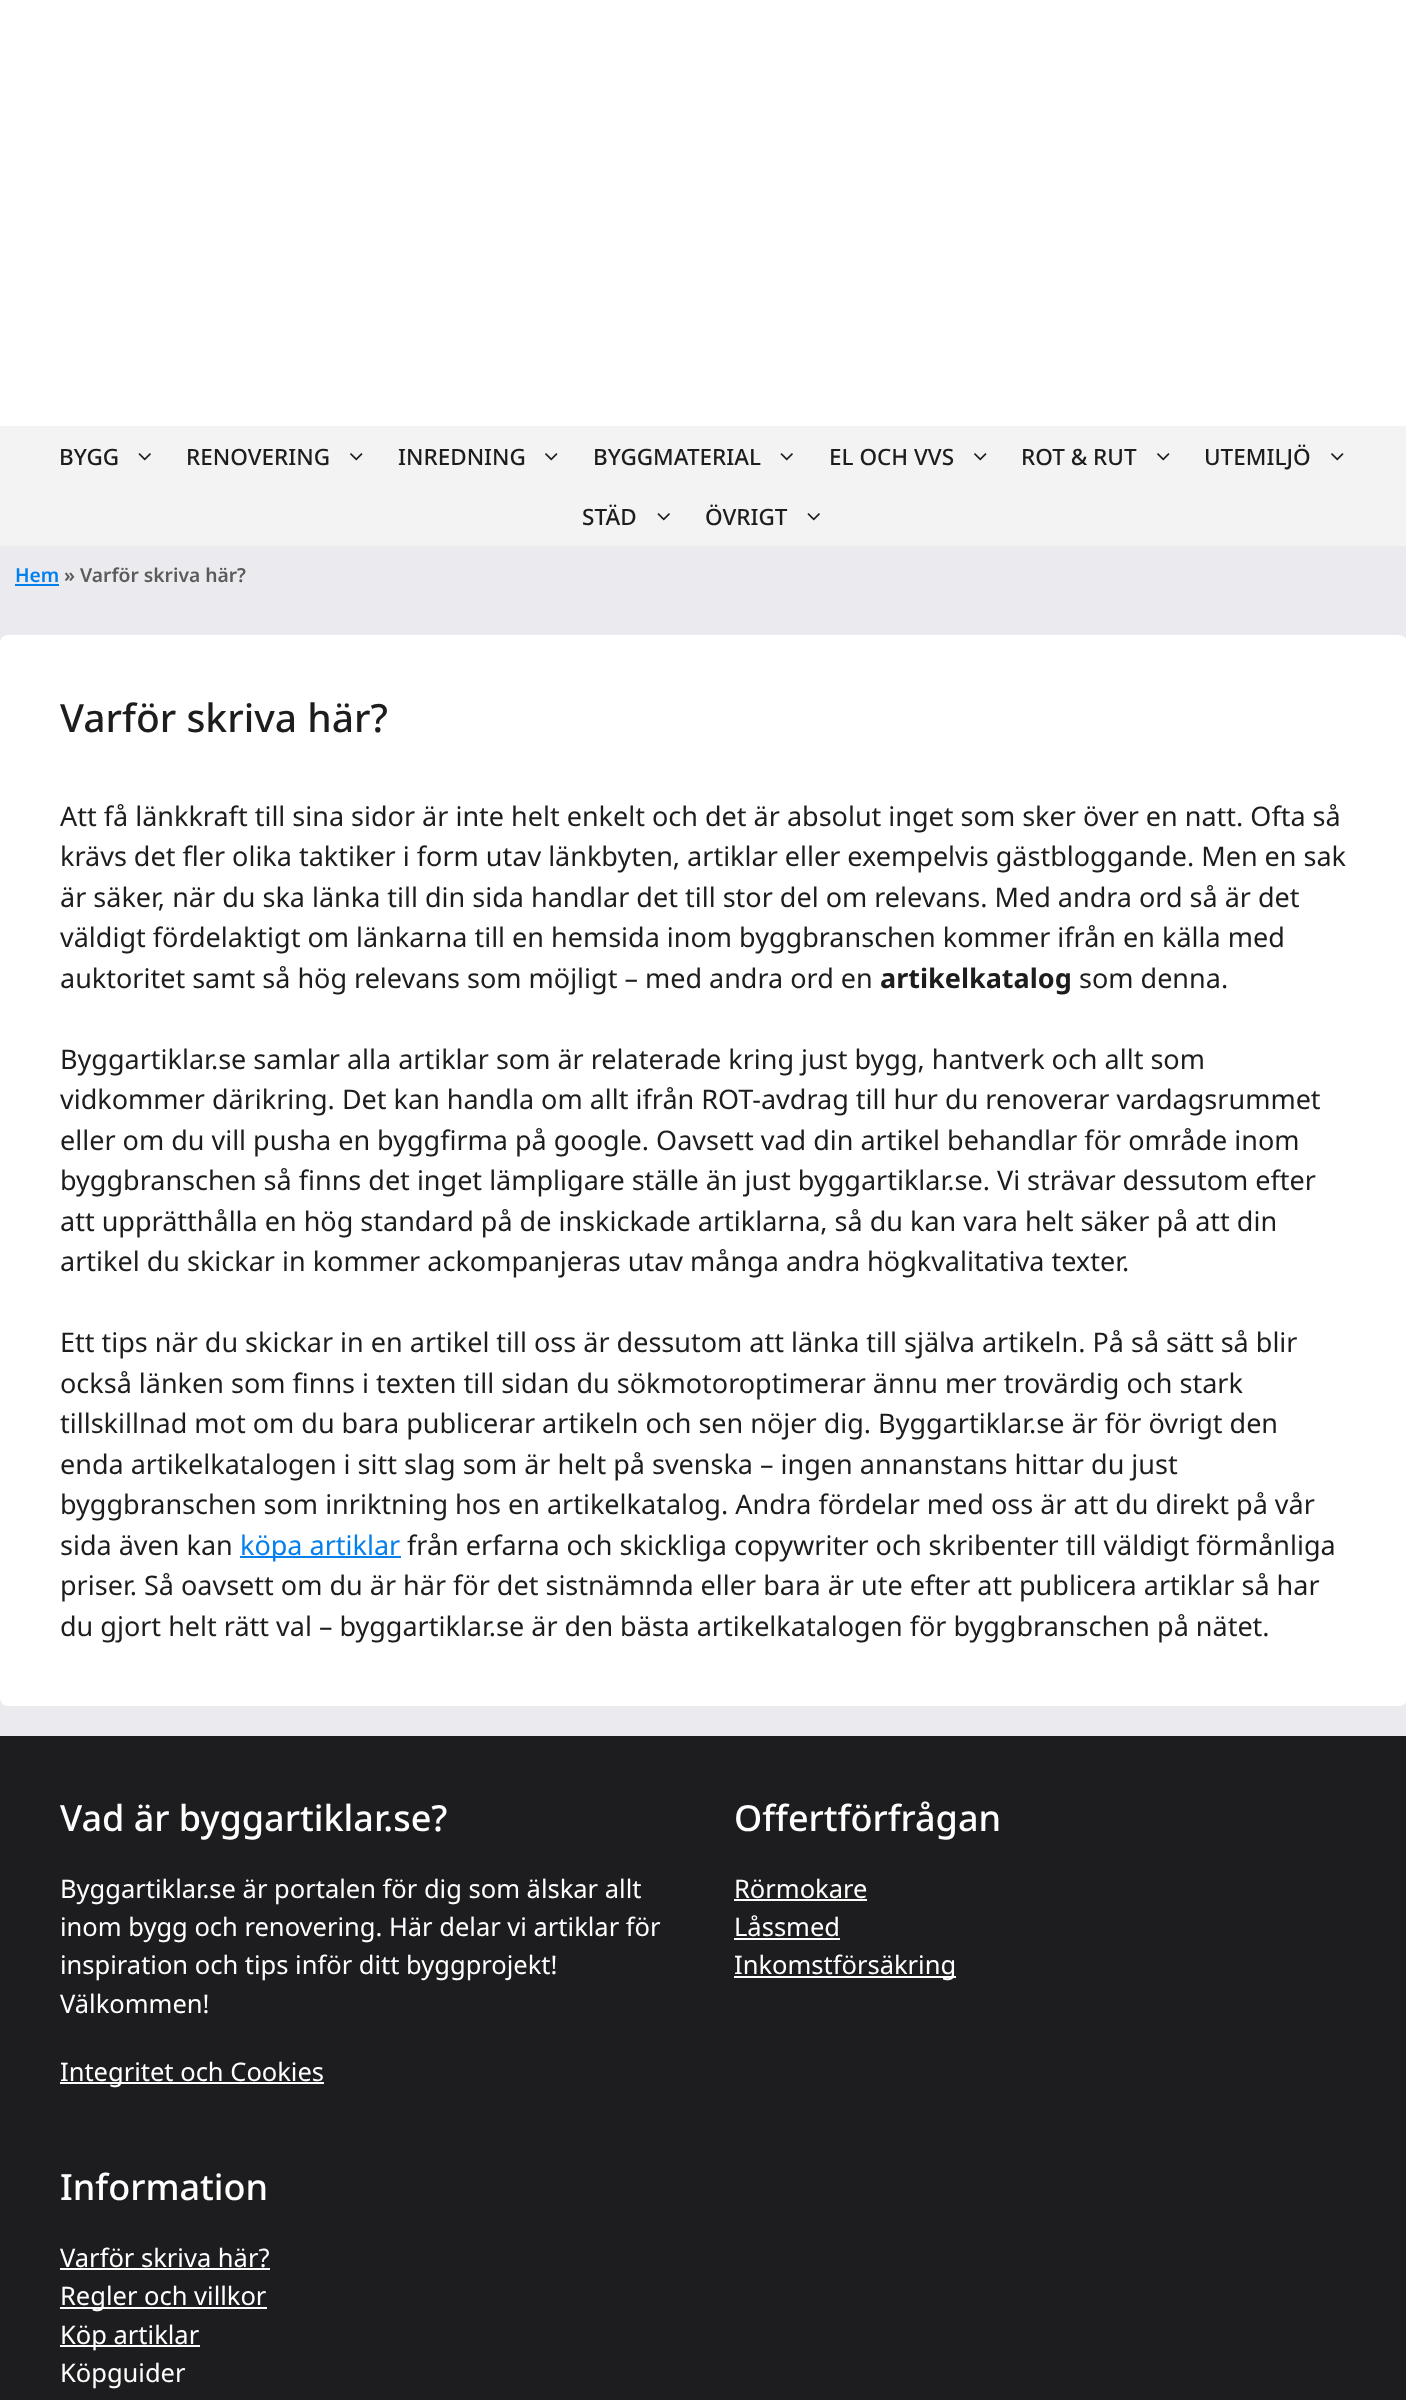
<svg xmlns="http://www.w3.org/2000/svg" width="1406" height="2400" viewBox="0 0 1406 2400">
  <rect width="100%" height="100%" fill="rgb(235,235,239)"/>
  <rect x="0" y="0" width="1406" height="426" fill="rgb(255,255,255)"/>
  <rect x="0" y="426" width="1406" height="120" fill="rgb(243,243,243)"/>
  <text x="59" y="465" font-family="Noto Sans" font-size="22.5" font-weight="500" fill="rgb(29,29,31)">BYGG</text>
  <image x="138" y="453" width="13" height="8" href="pic1.png"/>
  <text x="186" y="465" font-family="Noto Sans" font-size="22.5" font-weight="500" fill="rgb(29,29,31)">RENOVERING</text>
  <image x="350" y="453" width="13" height="8" href="pic2.png"/>
  <text x="398" y="465" font-family="Noto Sans" font-size="22.5" font-weight="500" fill="rgb(29,29,31)">INREDNING</text>
  <image x="545" y="453" width="13" height="8" href="pic2.png"/>
  <text x="593" y="465" font-family="Noto Sans" font-size="22.5" font-weight="500" fill="rgb(29,29,31)">BYGGMATERIAL</text>
  <image x="780" y="453" width="13" height="8" href="pic1.png"/>
  <text x="829" y="465" font-family="Noto Sans" font-size="22.5" font-weight="500" fill="rgb(29,29,31)">EL OCH VVS</text>
  <image x="974" y="453" width="13" height="8" href="pic2.png"/>
  <text x="1021" y="465" font-family="Noto Sans" font-size="22.5" font-weight="500" fill="rgb(29,29,31)">ROT &amp; RUT</text>
  <image x="1157" y="453" width="13" height="8" href="pic2.png"/>
  <text x="1204" y="465" font-family="Noto Sans" font-size="22.5" font-weight="500" fill="rgb(29,29,31)">UTEMILJÖ</text>
  <image x="1331" y="453" width="13" height="8" href="pic2.png"/>
  <text x="582" y="525" font-family="Noto Sans" font-size="22.5" font-weight="500" fill="rgb(29,29,31)">STÄD</text>
  <image x="657" y="513" width="13" height="8" href="pic1.png"/>
  <text x="705" y="525" font-family="Noto Sans" font-size="22.5" font-weight="500" fill="rgb(29,29,31)">ÖVRIGT</text>
  <image x="807" y="513" width="13" height="8" href="pic1.png"/>
  <text x="15" y="582" font-family="Noto Sans" font-size="19.25" font-weight="600" fill="rgb(3,127,238)">Hem</text>
  <rect x="15" y="584" width="44" height="2" fill="rgb(3,127,238)"/>
  <text x="64" y="582" font-family="Noto Sans" font-size="19.25" font-weight="600" fill="rgb(91,91,91)">» Varför skriva här?</text>
  <rect x="0" y="635" width="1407" height="1071" rx="8" fill="rgb(255,255,255)"/>
  <text x="60" y="732" font-family="Noto Sans" font-size="39" font-weight="500" fill="rgb(29,29,31)">Varför skriva här?</text>
  <g font-family="Noto Sans" font-size="27" fill="rgb(29,29,31)">
    <text>
      <tspan x="60" y="826">Att få länkkraft till sina sidor är inte helt enkelt och det är absolut inget som sker över en natt. Ofta så</tspan>
      <tspan x="60" y="866">krävs det fler olika taktiker i form utav länkbyten, artiklar eller exempelvis gästbloggande. Men en sak</tspan>
      <tspan x="60" y="907">är säker, när du ska länka till din sida handlar det till stor del om relevans. Med andra ord så är det</tspan>
      <tspan x="60" y="947">väldigt fördelaktigt om länkarna till en hemsida inom byggbranschen kommer ifrån en källa med</tspan>
      <tspan x="60" y="988">auktoritet samt så hög relevans som möjligt – med andra ord en</tspan>
    </text>
  </g>
  <text x="880" y="988" font-family="Noto Sans" font-size="27" font-weight="bold" fill="rgb(29,29,31)">artikelkatalog</text>
  <g font-family="Noto Sans" font-size="27" fill="rgb(29,29,31)">
    <text x="1079" y="988">som denna.</text>
    <text>
      <tspan x="60" y="1069">Byggartiklar.se samlar alla artiklar som är relaterade kring just bygg, hantverk och allt som</tspan>
      <tspan x="60" y="1109">vidkommer därikring. Det kan handla om allt ifrån ROT-avdrag till hur du renoverar vardagsrummet</tspan>
      <tspan x="60" y="1150">eller om du vill pusha en byggfirma på google. Oavsett vad din artikel behandlar för område inom</tspan>
      <tspan x="60" y="1190">byggbranschen så finns det inget lämpligare ställe än just byggartiklar.se. Vi strävar dessutom efter</tspan>
      <tspan x="60" y="1231">att upprätthålla en hög standard på de inskickade artiklarna, så du kan vara helt säker på att din</tspan>
      <tspan x="60" y="1271">artikel du skickar in kommer ackompanjeras utav många andra högkvalitativa texter.</tspan>
    </text>
    <text>
      <tspan x="60" y="1352">Ett tips när du skickar in en artikel till oss är dessutom att länka till själva artikeln. På så sätt så blir</tspan>
      <tspan x="60" y="1393">också länken som finns i texten till sidan du sökmotoroptimerar ännu mer trovärdig och stark</tspan>
      <tspan x="60" y="1433">tillskillnad mot om du bara publicerar artikeln och sen nöjer dig. Byggartiklar.se är för övrigt den</tspan>
      <tspan x="60" y="1474">enda artikelkatalogen i sitt slag som är helt på svenska – ingen annanstans hittar du just</tspan>
      <tspan x="60" y="1514">byggbranschen som inriktning hos en artikelkatalog. Andra fördelar med oss är att du direkt på vår</tspan>
      <tspan x="60" y="1555">sida även kan</tspan>
    </text>
  </g>
  <rect x="240" y="1556" width="161" height="2" fill="rgb(3,127,238)"/>
  <text x="240" y="1555" font-family="Noto Sans" font-size="27" fill="rgb(3,127,238)">köpa artiklar</text>
  <g font-family="Noto Sans" font-size="27" fill="rgb(29,29,31)">
    <text x="407" y="1555">från erfarna och skickliga copywriter och skribenter till väldigt förmånliga</text>
    <text>
      <tspan x="60" y="1595">priser. Så oavsett om du är här för det sistnämnda eller bara är ute efter att publicera artiklar så har</tspan>
      <tspan x="60" y="1636">du gjort helt rätt val – byggartiklar.se är den bästa artikelkatalogen för byggbranschen på nätet.</tspan>
    </text>
  </g>
  <rect x="0" y="1736" width="1406" height="664" fill="rgb(29,29,31)"/>
  <text x="60" y="1831" font-family="Noto Sans" font-size="36" font-weight="500" fill="rgb(255,255,255)">Vad är byggartiklar.se?</text>
  <g font-family="Noto Sans" font-size="25.5" fill="rgb(255,255,255)">
    <text>
      <tspan x="60" y="1898">Byggartiklar.se är portalen för dig som älskar allt</tspan>
      <tspan x="60" y="1936">inom bygg och renovering. Här delar vi artiklar för</tspan>
      <tspan x="60" y="1974">inspiration och tips inför ditt byggprojekt!</tspan>
      <tspan x="60" y="2013">Välkommen!</tspan>
    </text>
  </g>
  <rect x="60" y="2082" width="264" height="2" fill="rgb(255,255,255)"/>
  <text x="60" y="2081" font-family="Noto Sans" font-size="25.5" fill="rgb(255,255,255)">Integritet och Cookies</text>
  <text x="734" y="1831" font-family="Noto Sans" font-size="36" font-weight="500" fill="rgb(255,255,255)">Offertförfrågan</text>
  <text x="734" y="1898" font-family="Noto Sans" font-size="25.5" fill="rgb(255,255,255)">Rörmokare</text>
  <rect x="734" y="1899" width="133" height="2" fill="rgb(255,255,255)"/>
  <text x="734" y="1936" font-family="Noto Sans" font-size="25.5" fill="rgb(255,255,255)">Låssmed</text>
  <rect x="734" y="1938" width="106" height="2" fill="rgb(255,255,255)"/>
  <rect x="734" y="1976" width="222" height="2" fill="rgb(255,255,255)"/>
  <text x="734" y="1974" font-family="Noto Sans" font-size="25.5" fill="rgb(255,255,255)">Inkomstförsäkring</text>
  <text x="60" y="2200" font-family="Noto Sans" font-size="36" font-weight="500" fill="rgb(255,255,255)">Information</text>
  <text x="60" y="2267" font-family="Noto Sans" font-size="25.5" fill="rgb(255,255,255)">Varför skriva här?</text>
  <rect x="60" y="2268" width="210" height="2" fill="rgb(255,255,255)"/>
  <rect x="60" y="2307" width="207" height="2" fill="rgb(255,255,255)"/>
  <text x="60" y="2305" font-family="Noto Sans" font-size="25.5" fill="rgb(255,255,255)">Regler och villkor</text>
  <rect x="60" y="2345" width="140" height="2" fill="rgb(255,255,255)"/>
  <g font-family="Noto Sans" font-size="25.5" fill="rgb(255,255,255)">
    <text>
      <tspan x="60" y="2344">Köp artiklar</tspan>
      <tspan x="60" y="2382">Köpguider</tspan>
    </text>
  </g>
</svg>
